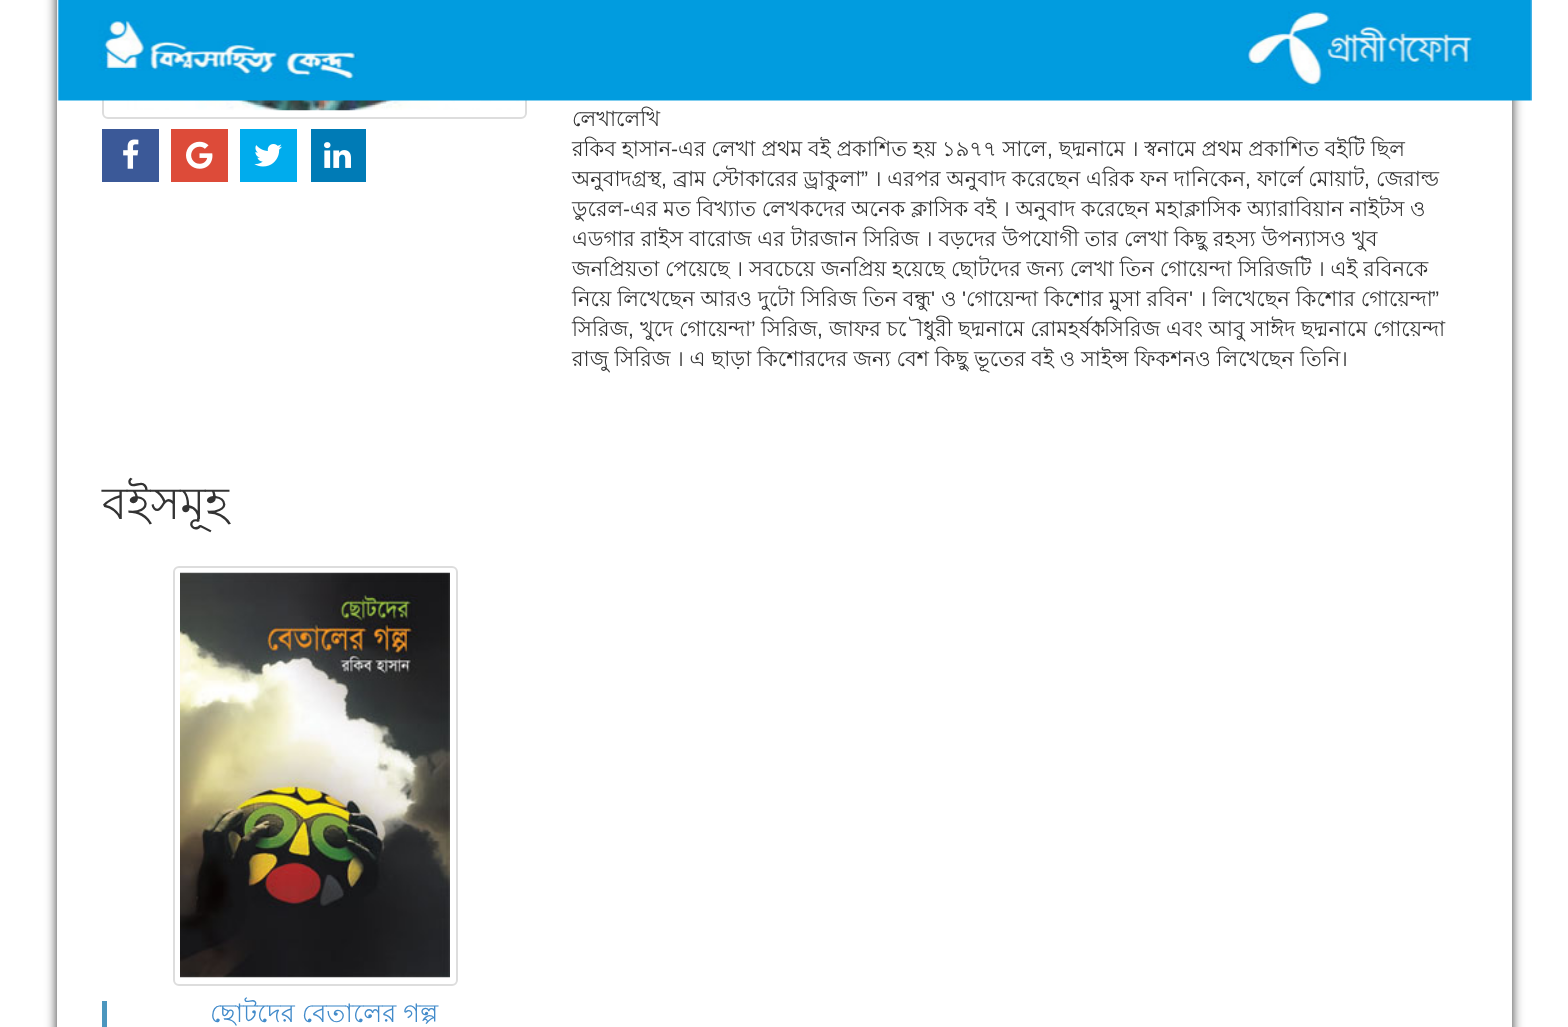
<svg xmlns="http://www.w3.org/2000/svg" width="1568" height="1027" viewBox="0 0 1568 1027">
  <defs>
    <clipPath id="clip1"><path d="M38 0H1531V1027H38ZM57-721H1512V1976H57Z" clip-rule="evenodd"/></clipPath>
  </defs>
  <rect width="100%" height="100%" fill="rgb(255,255,255)"/>
  <g clip-path="url(#clip1)">
    <rect x="57" y="-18" width="1455" height="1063" fill="rgba(0,0,0,0.8)" filter="blur(6px)"/>
  </g>
  <rect x="103" y="-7" width="423" height="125" rx="5" fill="none" stroke="rgb(221,221,221)" stroke-width="2"/>
  <image x="110" y="100" width="409" height="11" href="pic2.png"/>
  <image x="57" y="0" width="1475" height="101" href="pic1.png"/>
  <rect x="102" y="129" width="57" height="53" fill="rgb(59,89,152)"/>
  <image x="123" y="139" width="16" height="30" href="pic3.png"/>
  <rect x="171" y="129" width="57" height="53" fill="rgb(221,75,57)"/>
  <image x="186" y="141" width="27" height="28" href="pic4.png"/>
  <rect x="240" y="129" width="57" height="53" fill="rgb(0,172,237)"/>
  <image x="254" y="144" width="28" height="23" href="pic5.png"/>
  <rect x="311" y="129" width="55" height="53" fill="rgb(0,123,182)"/>
  <image x="324" y="142" width="27" height="26" href="pic6.png"/>
  <g font-family="Lohit Bengali" font-size="21" fill="rgb(51,51,51)">
    <text>
      <tspan x="572" y="126">লেখালেখি</tspan>
      <tspan x="572" y="156">রকিব হাসান</tspan>
    </text>
  </g>
  <text x="671" y="156" font-family="Liberation Sans" font-size="21" fill="rgb(51,51,51)">-</text>
  <g font-family="Lohit Bengali" font-size="21" fill="rgb(51,51,51)">
    <text x="678" y="156">এর লেখা প্রথম বই প্রকাশিত হয় ১৯৭৭ সালে</text>
    <text x="1059" y="156">ছদ্মনামে । স্বনামে প্রথম প্রকাশিত বইটি ছিল</text>
  </g>
  <text x="1047" y="156" font-family="Liberation Sans" font-size="21" fill="rgb(51,51,51)">,</text>
  <g font-family="Lohit Bengali" font-size="21" fill="rgb(51,51,51)">
    <text x="572" y="186">অনুবাদগ্ৰস্থ</text>
    <text x="673" y="186">ব্রাম স্টোকারের ড্রাকুলা</text>
  </g>
  <text x="861" y="186" font-family="Liberation Sans" font-size="21" fill="rgb(51,51,51)">”</text>
  <g font-family="Lohit Bengali" font-size="21" fill="rgb(51,51,51)">
    <text x="874" y="186">। এরপর অনুবাদ করেছেন এরিক ফন দানিকেন</text>
    <text x="1257" y="186">ফার্লে মোয়াট</text>
    <text x="1376" y="186">জেরাল্ড</text>
  </g>
  <g font-family="Liberation Sans" font-size="21" fill="rgb(51,51,51)">
    <text x="661" y="186">,</text>
    <text x="1245" y="186">,</text>
    <text x="1364" y="186">,</text>
  </g>
  <text x="572" y="216" font-family="Lohit Bengali" font-size="21" fill="rgb(51,51,51)">ডুরেল</text>
  <text x="623" y="216" font-family="Liberation Sans" font-size="21" fill="rgb(51,51,51)">-</text>
  <g font-family="Lohit Bengali" font-size="21" fill="rgb(51,51,51)">
    <text x="630" y="216">এর মত বিখ্যাত লেখকদের অনেক ক্লাসিক বই । অনুবাদ করেছেন মহাক্লাসিক অ্যারাবিয়ান নাইটস ও</text>
    <text>
      <tspan x="572" y="246">এডগার রাইস বারোজ এর টারজান সিরিজ । বড়দের উপযোগী তার লেখা কিছু রহস্য উপন্যাসও খুব</tspan>
      <tspan x="572" y="276">জনপ্রিয়তা পেয়েছে । সবচেয়ে জনপ্রিয় হয়েছে ছোটদের জন্য লেখা তিন গোয়েন্দা সিরিজটি । এই রবিনকে</tspan>
      <tspan x="572" y="306">নিয়ে লিখেছেন আরও দুটাে সিরিজ তিন বন্ধু</tspan>
    </text>
  </g>
  <text x="931" y="306" font-family="Liberation Sans" font-size="21" fill="rgb(51,51,51)">'</text>
  <text x="941" y="306" font-family="Lohit Bengali" font-size="21" fill="rgb(51,51,51)">ও</text>
  <text x="962" y="306" font-family="Liberation Sans" font-size="21" fill="rgb(51,51,51)">'</text>
  <text x="966" y="306" font-family="Lohit Bengali" font-size="21" fill="rgb(51,51,51)">গোয়েন্দা কিশোর মুসা রবিন</text>
  <text x="1189" y="306" font-family="Liberation Sans" font-size="21" fill="rgb(51,51,51)">'</text>
  <text x="1199" y="306" font-family="Lohit Bengali" font-size="21" fill="rgb(51,51,51)">। লিখেছেন কিশোর গোয়েন্দা</text>
  <text x="1432" y="306" font-family="Liberation Sans" font-size="21" fill="rgb(51,51,51)">”</text>
  <text x="572" y="336" font-family="Lohit Bengali" font-size="21" fill="rgb(51,51,51)">সিরিজ</text>
  <text x="628" y="336" font-family="Liberation Sans" font-size="21" fill="rgb(51,51,51)">,</text>
  <text x="640" y="336" font-family="Lohit Bengali" font-size="21" fill="rgb(51,51,51)">খুদে গোয়েন্দা</text>
  <text x="751" y="336" font-family="Liberation Sans" font-size="21" fill="rgb(51,51,51)">’</text>
  <g font-family="Lohit Bengali" font-size="21" fill="rgb(51,51,51)">
    <text x="761" y="336">সিরিজ</text>
    <text x="829" y="336">জাফর চৌধুরী ছদ্মনামে রোমহর্ষক</text>
  </g>
  <text x="1094" y="336" font-family="Liberation Sans" font-size="21" fill="rgb(51,51,51)">’</text>
  <text x="1104" y="336" font-family="Lohit Bengali" font-size="21" fill="rgb(51,51,51)">সিরিজ এবং আবু সাঈদ ছদ্মনামে গোয়েন্দা</text>
  <text x="817" y="336" font-family="Liberation Sans" font-size="21" fill="rgb(51,51,51)">,</text>
  <text x="572" y="366" font-family="Lohit Bengali" font-size="21" fill="rgb(51,51,51)">রাজু সিরিজ । এ ছাড়া কিশোরদের জন্য বেশ কিছু ভূতের বই ও সাইন্স ফিকশনও লিখেছেন তিনি।</text>
  <text x="102" y="519" font-family="Lohit Bengali" font-size="45" fill="rgb(51,51,51)">বইসমূহ</text>
  <rect x="174" y="567" width="283" height="418" rx="5" fill="none" stroke="rgb(221,221,221)" stroke-width="2"/>
  <image x="180" y="572" width="270" height="406" href="pic7.png"/>
  <rect x="102" y="1001" width="5" height="26" fill="rgb(75,150,190)"/>
  <text x="210" y="1022" font-family="Lohit Bengali" font-size="25.5" fill="rgb(66,139,202)">ছোটদের বেতালের গল্প</text>
</svg>
